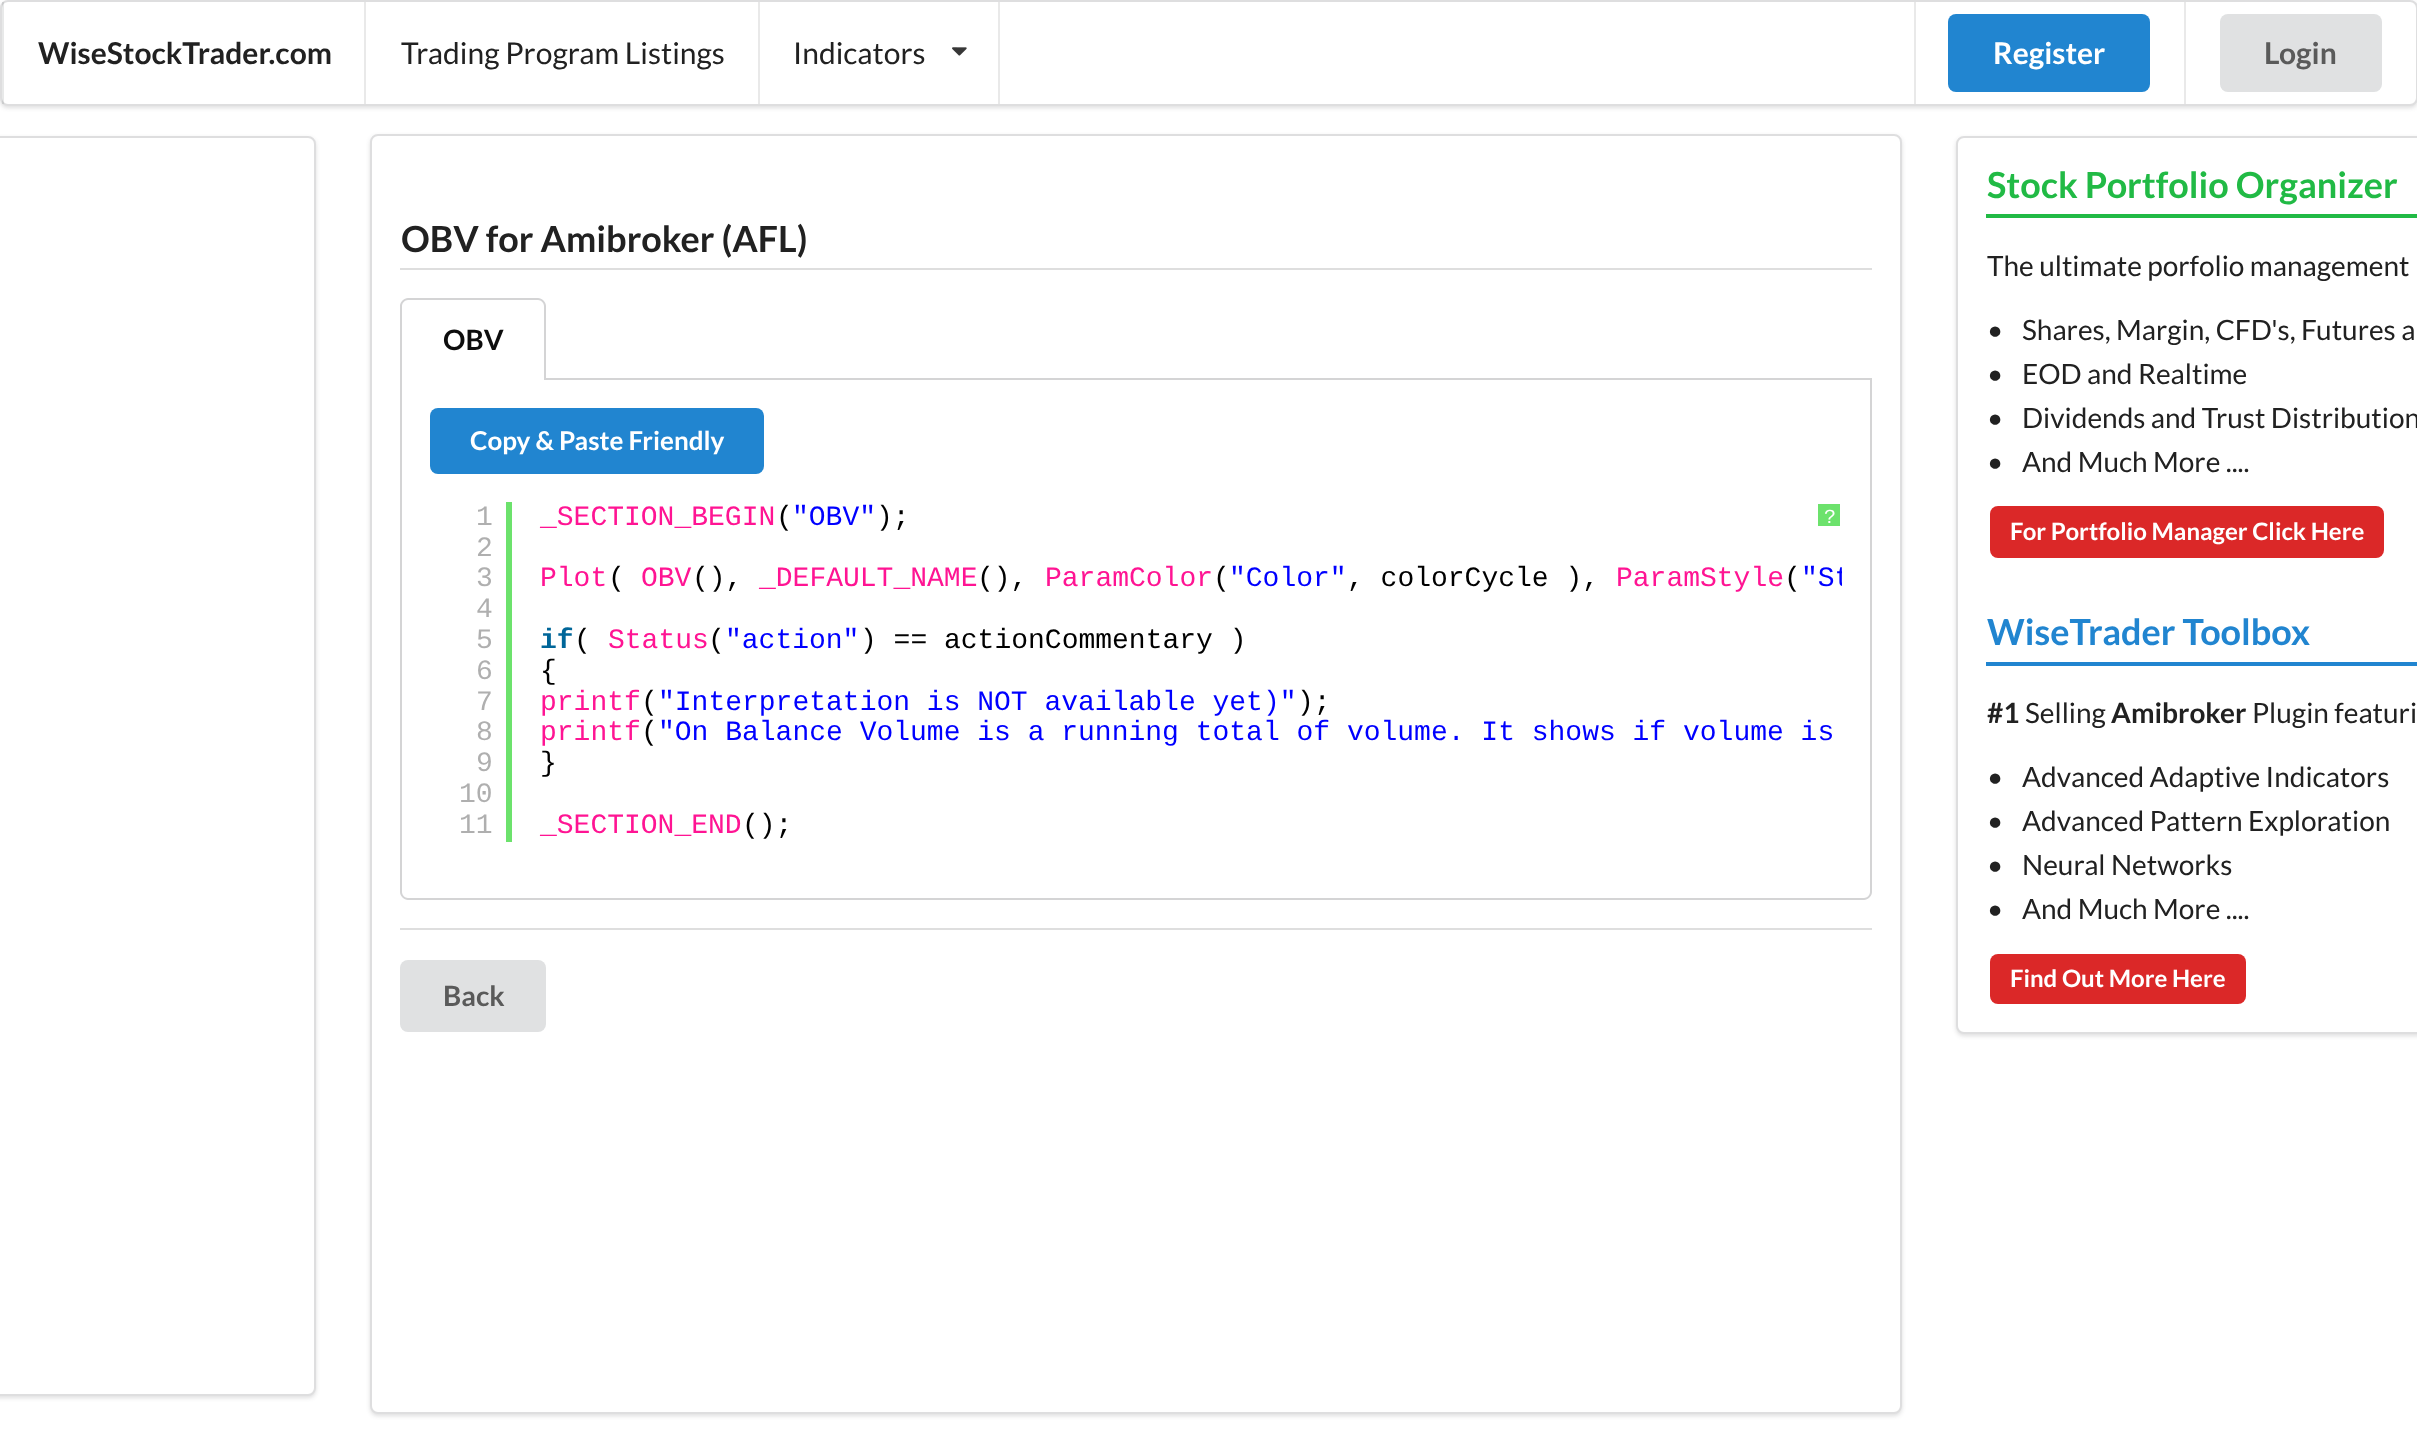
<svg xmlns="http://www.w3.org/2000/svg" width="2417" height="1452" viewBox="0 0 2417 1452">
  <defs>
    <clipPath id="clip1"><rect x="430" y="502" width="1412" height="340"/></clipPath>
  </defs>
  <rect width="100%" height="100%" fill="rgb(255,255,255)"/>
  <rect x="0" y="2" width="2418" height="106" rx="8" fill="rgba(34,36,38,0.15)" filter="blur(2px)"/>
  <rect x="0" y="0" width="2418" height="106" rx="8" fill="rgb(255,255,255)"/>
  <rect x="1" y="1" width="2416" height="104" rx="7" fill="none" stroke="rgba(34,36,38,0.15)" stroke-width="2"/>
  <rect x="2" y="2" width="2" height="102" fill="rgba(34,36,38,0.1)"/>
  <text x="38" y="64" font-family="Lato" font-size="30" font-weight="bold" fill="rgb(33,33,33)">WiseStockTrader.com</text>
  <rect x="364" y="2" width="2" height="102" fill="rgb(233,233,233)"/>
  <text x="401" y="64" font-family="Lato" font-size="30" fill="rgb(33,33,33)">Trading Program Listings</text>
  <rect x="758" y="2" width="2" height="102" fill="rgb(233,233,233)"/>
  <text x="793" y="64" font-family="Lato" font-size="30" fill="rgb(33,33,33)">Indicators</text>
  <image x="952" y="47" width="15" height="9" href="pic1.png"/>
  <rect x="998" y="2" width="2" height="102" fill="rgb(233,233,233)"/>
  <rect x="1914" y="2" width="2" height="102" fill="rgb(233,233,233)"/>
  <rect x="1948" y="14" width="202" height="78" rx="8" fill="rgb(33,133,208)"/>
  <text x="1993" y="64" font-family="Lato" font-size="30" font-weight="bold" fill="rgb(255,255,255)">Register</text>
  <rect x="2184" y="2" width="2" height="102" fill="rgb(233,233,233)"/>
  <rect x="2220" y="14" width="162" height="78" rx="8" fill="rgb(224,225,226)"/>
  <text x="2264" y="64" font-family="Lato" font-size="30" font-weight="bold" fill="rgb(90,90,90)">Login</text>
  <rect x="370" y="136" width="1532" height="1280" rx="8" fill="rgba(34,36,38,0.15)" filter="blur(2px)"/>
  <rect x="370" y="134" width="1532" height="1280" rx="8" fill="rgb(255,255,255)"/>
  <rect x="371" y="135" width="1530" height="1278" rx="7" fill="none" stroke="rgba(34,36,38,0.15)" stroke-width="2"/>
  <rect x="-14" y="138" width="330" height="1260" rx="8" fill="rgba(34,36,38,0.15)" filter="blur(2px)"/>
  <rect x="-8" y="136" width="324" height="1260" rx="8" fill="rgb(255,255,255)"/>
  <rect x="-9" y="137" width="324" height="1258" rx="7" fill="none" stroke="rgba(34,36,38,0.15)" stroke-width="2"/>
  <rect x="400" y="268" width="1472" height="2" fill="rgb(222,222,222)"/>
  <text x="401" y="252" font-family="Lato" font-size="36" font-weight="bold" fill="rgb(33,33,33)">OBV for Amibroker (AFL)</text>
  <rect x="1956" y="138" width="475" height="898" rx="8" fill="rgba(34,36,38,0.15)" filter="blur(2px)"/>
  <rect x="1956" y="136" width="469" height="898" rx="8" fill="rgb(255,255,255)"/>
  <rect x="1957" y="137" width="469" height="896" rx="7" fill="none" stroke="rgba(34,36,38,0.15)" stroke-width="2"/>
  <rect x="1986" y="214" width="431" height="4" fill="rgb(33,186,69)"/>
  <text x="1987" y="198" font-family="Lato" font-size="36" font-weight="bold" fill="rgb(33,186,69)">Stock Portfolio Organizer</text>
  <g font-family="Lato" font-size="28" fill="rgb(33,33,33)">
    <text x="1987" y="276">The ultimate porfolio management</text>
    <text x="1987" y="340">•</text>
    <text x="2022" y="340">Shares, Margin, CFD's, Futures a</text>
    <text x="1987" y="384">•</text>
    <text x="2022" y="384">EOD and Realtime</text>
    <text x="1987" y="428">•</text>
    <text x="2022" y="428">Dividends and Trust Distribution</text>
    <text x="1987" y="472">•</text>
    <text x="2022" y="472">And Much More ....</text>
  </g>
  <rect x="1990" y="506" width="394" height="52" rx="8" fill="rgb(219,40,40)"/>
  <text x="2010" y="540" font-family="Lato" font-size="24" font-weight="bold" fill="rgb(255,255,255)">For Portfolio Manager Click Here</text>
  <rect x="1986" y="662" width="431" height="4" fill="rgb(33,133,208)"/>
  <text x="1987" y="645" font-family="Lato" font-size="36" font-weight="bold" fill="rgb(33,133,208)">WiseTrader Toolbox</text>
  <text x="1987" y="723" font-family="Lato" font-size="28" font-weight="bold" fill="rgb(33,33,33)">#1</text>
  <text x="2025" y="723" font-family="Lato" font-size="28" fill="rgb(33,33,33)">Selling</text>
  <text x="2111" y="723" font-family="Lato" font-size="28" font-weight="bold" fill="rgb(33,33,33)">Amibroker</text>
  <g font-family="Lato" font-size="28" fill="rgb(33,33,33)">
    <text x="2252" y="723">Plugin featuri</text>
    <text x="1987" y="787">•</text>
    <text x="2022" y="787">Advanced Adaptive Indicators</text>
    <text x="1987" y="831">•</text>
    <text x="2022" y="831">Advanced Pattern Exploration</text>
    <text x="1987" y="875">•</text>
    <text x="2022" y="875">Neural Networks</text>
    <text x="1987" y="919">•</text>
    <text x="2022" y="919">And Much More ....</text>
  </g>
  <rect x="1990" y="954" width="256" height="50" rx="8" fill="rgb(219,40,40)"/>
  <text x="2010" y="987" font-family="Lato" font-size="24" font-weight="bold" fill="rgb(255,255,255)">Find Out More Here</text>
  <rect x="546" y="378" width="1326" height="2" fill="rgb(212,212,213)"/>
  <path d="M408 298H538C542 298 546 302 546 306V380H400V306C400 302 404 298 408 298ZM408 300H538C541 300 544 303 544 306V380H402V306C402 303 405 300 408 300Z" fill="rgb(212,212,213)" fill-rule="evenodd"/>
  <text x="443" y="350" font-family="Lato" font-size="28" font-weight="bold" fill="rgb(13,13,13)">OBV</text>
  <path d="M400 380H1872V892C1872 896 1868 900 1864 900H408C404 900 400 896 400 892ZM402 380H1870V892C1870 895 1867 898 1864 898H408C405 898 402 895 402 892Z" fill="rgb(212,212,213)" fill-rule="evenodd"/>
  <rect x="430" y="408" width="334" height="66" rx="8" fill="rgb(33,133,208)"/>
  <text x="470" y="450" font-family="Lato" font-size="26" font-weight="bold" fill="rgb(255,255,255)">Copy &amp; Paste Friendly</text>
  <rect x="506" y="502" width="6" height="340" fill="rgb(108,226,108)"/>
  <g font-family="Liberation Mono" font-size="28" fill="rgb(175,175,175)">
    <text>
      <tspan x="476" y="525">1</tspan>
      <tspan x="476" y="556">2</tspan>
      <tspan x="476" y="586">3</tspan>
      <tspan x="476" y="617">4</tspan>
      <tspan x="476" y="648">5</tspan>
      <tspan x="476" y="679">6</tspan>
      <tspan x="476" y="710">7</tspan>
      <tspan x="476" y="740">8</tspan>
      <tspan x="476" y="771">9</tspan>
    </text>
    <text>
      <tspan x="459" y="802">10</tspan>
      <tspan x="459" y="833">11</tspan>
    </text>
  </g>
  <text x="540" y="525" font-family="Liberation Mono" font-size="28" fill="rgb(255,20,147)">_SECTION_BEGIN</text>
  <text x="776" y="525" font-family="Liberation Mono" font-size="28" fill="rgb(0,0,0)">(</text>
  <text x="792" y="525" font-family="Liberation Mono" font-size="28" fill="rgb(0,0,255)">"OBV"</text>
  <text x="876" y="525" font-family="Liberation Mono" font-size="28" fill="rgb(0,0,0)">);</text>
  <text x="540" y="586" font-family="Liberation Mono" font-size="28" fill="rgb(255,20,147)">Plot</text>
  <text x="608" y="586" font-family="Liberation Mono" font-size="28" fill="rgb(0,0,0)">(</text>
  <text x="641" y="586" font-family="Liberation Mono" font-size="28" fill="rgb(255,20,147)">OBV</text>
  <text x="692" y="586" font-family="Liberation Mono" font-size="28" fill="rgb(0,0,0)">(),</text>
  <text x="759" y="586" font-family="Liberation Mono" font-size="28" fill="rgb(255,20,147)">_DEFAULT_NAME</text>
  <text x="977" y="586" font-family="Liberation Mono" font-size="28" fill="rgb(0,0,0)">(),</text>
  <text x="1045" y="586" font-family="Liberation Mono" font-size="28" fill="rgb(255,20,147)">ParamColor</text>
  <text x="1213" y="586" font-family="Liberation Mono" font-size="28" fill="rgb(0,0,0)">(</text>
  <text x="1229" y="586" font-family="Liberation Mono" font-size="28" fill="rgb(0,0,255)">"Color"</text>
  <text x="1347" y="586" font-family="Liberation Mono" font-size="28" fill="rgb(0,0,0)">, colorCycle ),</text>
  <text x="1616" y="586" font-family="Liberation Mono" font-size="28" fill="rgb(255,20,147)">ParamStyle</text>
  <text x="1784" y="586" font-family="Liberation Mono" font-size="28" fill="rgb(0,0,0)">(</text>
  <g clip-path="url(#clip1)">
    <text x="1801" y="586" font-family="Liberation Mono" font-size="28" fill="rgb(0,0,255)">"St</text>
  </g>
  <text x="540" y="648" font-family="Liberation Mono" font-size="28" font-weight="bold" fill="rgb(0,102,153)">if</text>
  <text x="574" y="648" font-family="Liberation Mono" font-size="28" fill="rgb(0,0,0)">(</text>
  <text x="608" y="648" font-family="Liberation Mono" font-size="28" fill="rgb(255,20,147)">Status</text>
  <text x="708" y="648" font-family="Liberation Mono" font-size="28" fill="rgb(0,0,0)">(</text>
  <text x="725" y="648" font-family="Liberation Mono" font-size="28" fill="rgb(0,0,255)">"action"</text>
  <g font-family="Liberation Mono" font-size="28" fill="rgb(0,0,0)">
    <text x="860" y="648">) == actionCommentary )</text>
    <text x="540" y="679">{</text>
  </g>
  <text x="540" y="710" font-family="Liberation Mono" font-size="28" fill="rgb(255,20,147)">printf</text>
  <text x="641" y="710" font-family="Liberation Mono" font-size="28" fill="rgb(0,0,0)">(</text>
  <text x="658" y="710" font-family="Liberation Mono" font-size="28" fill="rgb(0,0,255)">"Interpretation is NOT available yet)"</text>
  <text x="1297" y="710" font-family="Liberation Mono" font-size="28" fill="rgb(0,0,0)">);</text>
  <text x="540" y="740" font-family="Liberation Mono" font-size="28" fill="rgb(255,20,147)">printf</text>
  <text x="641" y="740" font-family="Liberation Mono" font-size="28" fill="rgb(0,0,0)">(</text>
  <text x="658" y="740" font-family="Liberation Mono" font-size="28" fill="rgb(0,0,255)">"On Balance Volume is a running total of volume. It shows if volume is</text>
  <text x="540" y="771" font-family="Liberation Mono" font-size="28" fill="rgb(0,0,0)">}</text>
  <text x="540" y="833" font-family="Liberation Mono" font-size="28" fill="rgb(255,20,147)">_SECTION_END</text>
  <text x="742" y="833" font-family="Liberation Mono" font-size="28" fill="rgb(0,0,0)">();</text>
  <rect x="1818" y="504" width="22" height="22" fill="rgb(108,226,108)"/>
  <text x="1824" y="523" font-family="Liberation Mono" font-size="20" fill="rgb(255,255,255)">?</text>
  <rect x="400" y="928" width="1472" height="2" fill="rgb(222,222,222)"/>
  <rect x="400" y="960" width="146" height="72" rx="8" fill="rgb(224,225,226)"/>
  <text x="443" y="1006" font-family="Lato" font-size="28" font-weight="bold" fill="rgb(90,90,90)">Back</text>
</svg>
